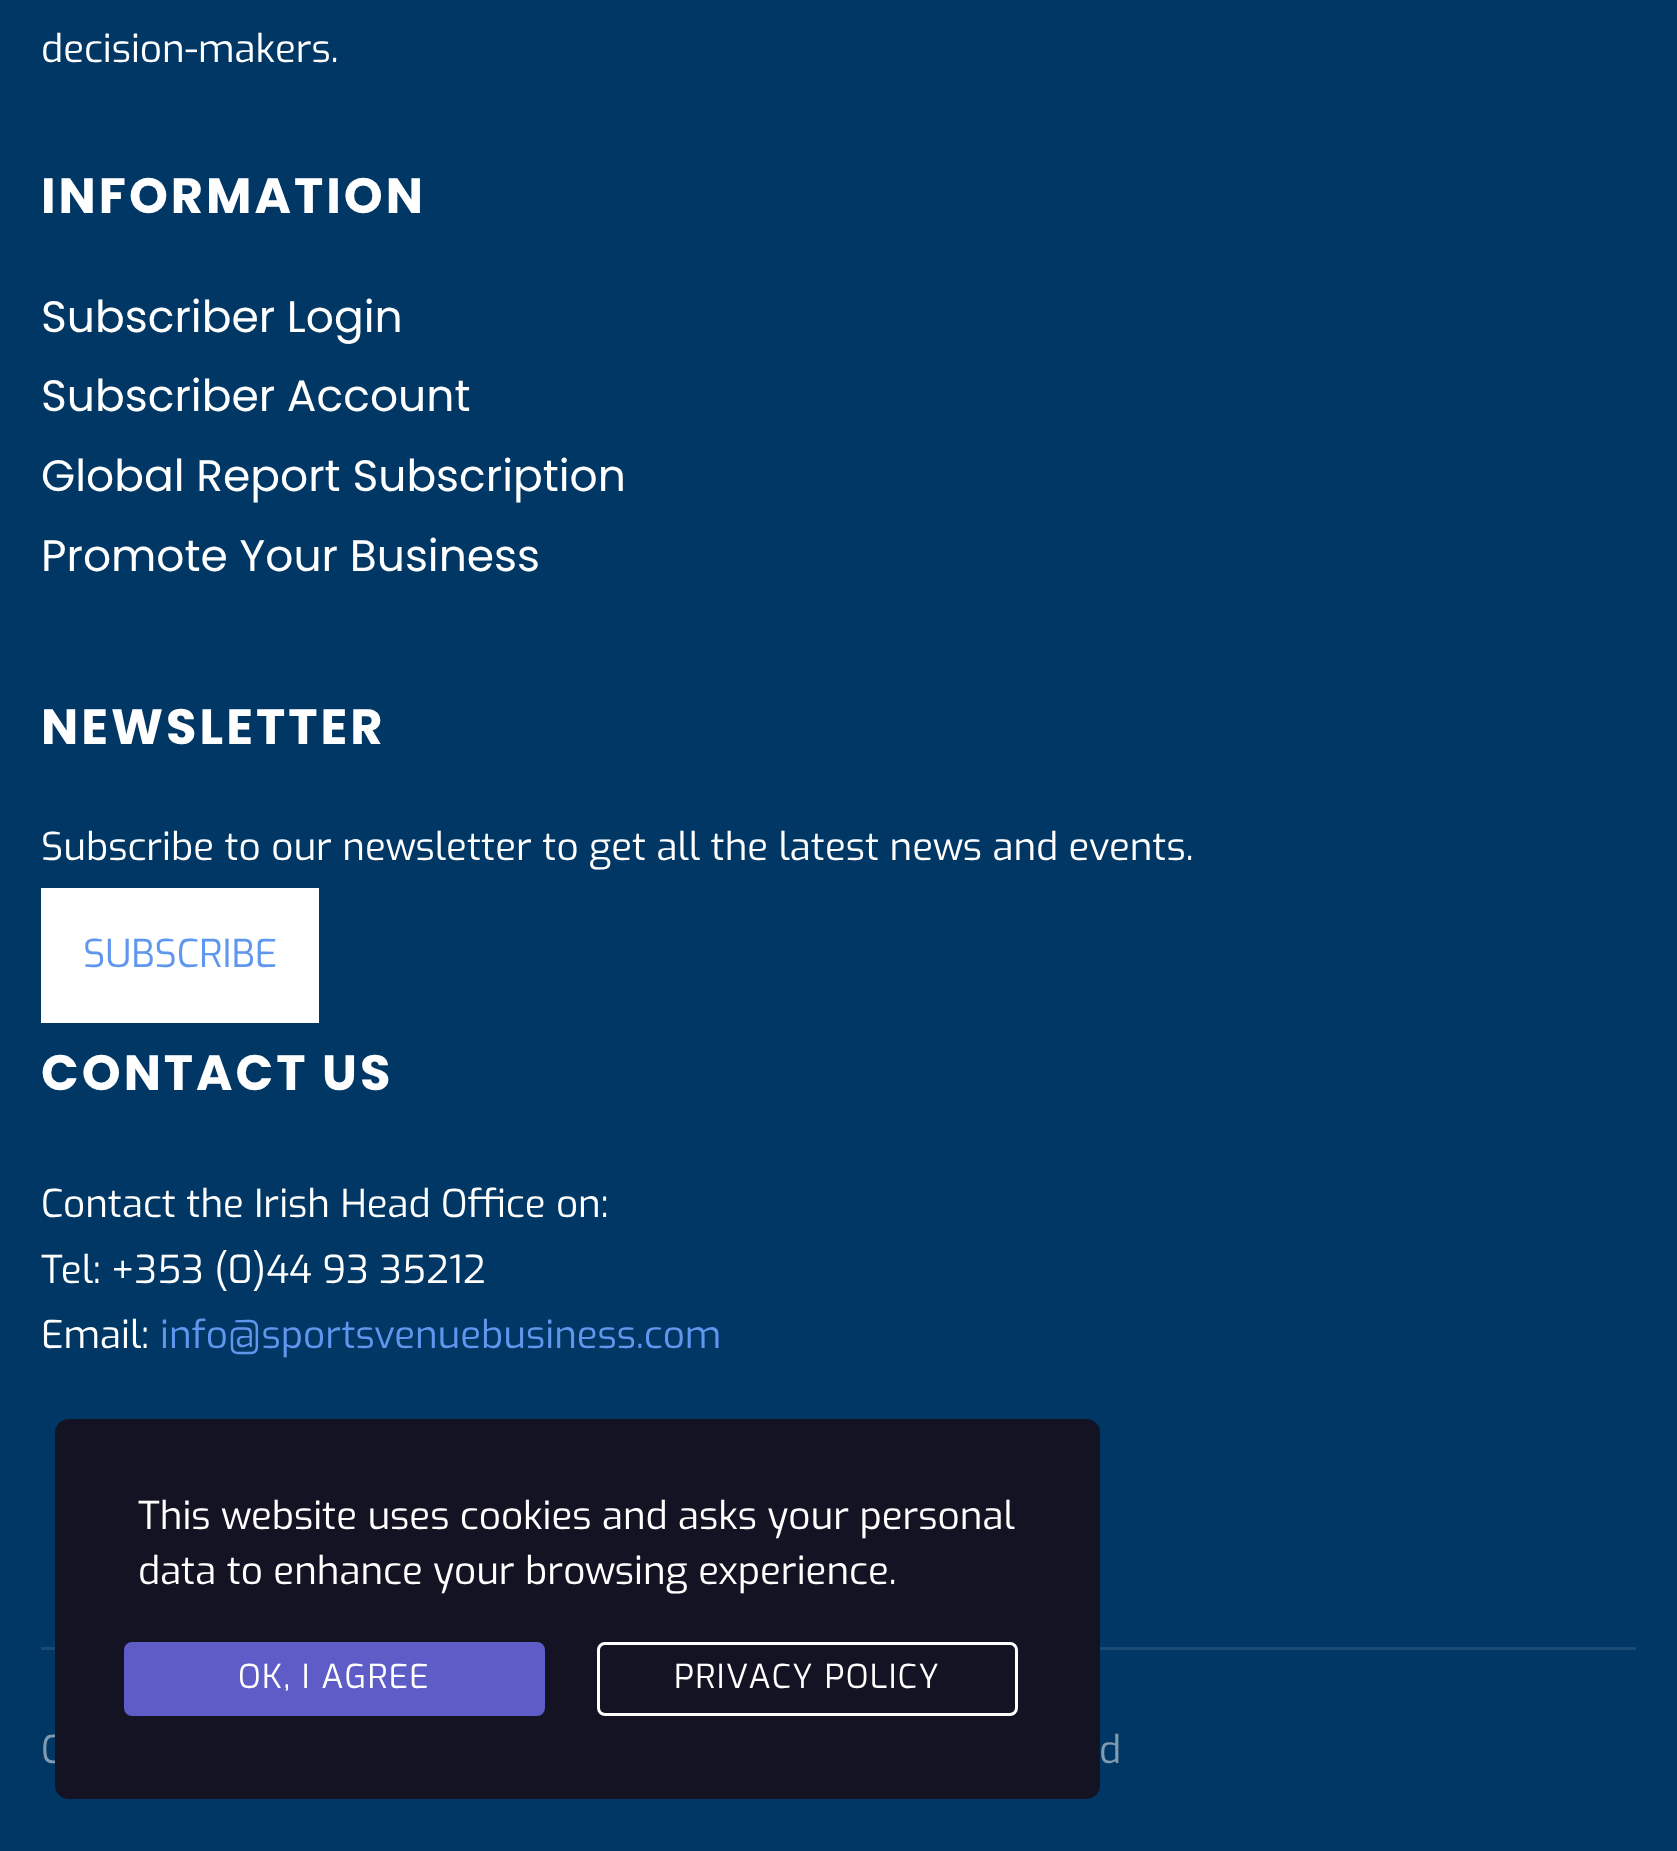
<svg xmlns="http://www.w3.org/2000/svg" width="1677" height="1851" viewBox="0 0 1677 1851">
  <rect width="100%" height="100%" fill="rgb(0,55,100)"/>
  <text x="41" y="62" font-family="Exo" font-size="38.5" fill="rgb(255,255,255)">decision-makers.</text>
  <text x="41" y="213" font-family="Poppins" font-size="49.5" font-weight="bold" letter-spacing="3" fill="rgb(255,255,255)">INFORMATION</text>
  <g font-family="Poppins" font-size="44" fill="rgb(255,255,255)">
    <text>
      <tspan x="41" y="332">Subscriber Login</tspan>
      <tspan x="41" y="411">Subscriber Account</tspan>
      <tspan x="41" y="491">Global Report Subscription</tspan>
      <tspan x="41" y="571">Promote Your Business</tspan>
    </text>
  </g>
  <text x="41" y="744" font-family="Poppins" font-size="49.5" font-weight="bold" letter-spacing="3" fill="rgb(255,255,255)">NEWSLETTER</text>
  <text x="41" y="860" font-family="Exo" font-size="38.5" fill="rgb(255,255,255)">Subscribe to our newsletter to get all the latest news and events.</text>
  <rect x="41" y="888" width="278" height="135" fill="rgb(255,255,255)"/>
  <text x="83" y="967" font-family="Exo" font-size="38.5" fill="rgb(95,150,238)">SUBSCRIBE</text>
  <text x="41" y="1090" font-family="Poppins" font-size="49.5" font-weight="bold" letter-spacing="3" fill="rgb(255,255,255)">CONTACT US</text>
  <g font-family="Exo" font-size="38.5" fill="rgb(255,255,255)">
    <text>
      <tspan x="41" y="1217">Contact the Irish Head Office on:</tspan>
      <tspan x="41" y="1283">Tel: +353 (0)44 93 35212</tspan>
      <tspan x="41" y="1348">Email:</tspan>
    </text>
  </g>
  <text x="160" y="1348" font-family="Exo" font-size="38.5" fill="rgb(95,150,238)">info@sportsvenuebusiness.com</text>
  <rect x="41" y="1647" width="1595" height="3" fill="rgb(26,75,116)"/>
  <g font-family="Exo" font-size="38.5" fill="rgb(128,155,178)">
    <text x="41" y="1763">C</text>
    <text x="1099" y="1763">d</text>
  </g>
  <rect x="55" y="1419" width="1045" height="380" rx="14" fill="rgb(19,19,35)"/>
  <g font-family="Exo" font-size="38.5" fill="rgb(255,255,255)">
    <text>
      <tspan x="138" y="1529">This website uses cookies and asks your personal</tspan>
      <tspan x="138" y="1584">data to enhance your browsing experience.</tspan>
    </text>
  </g>
  <rect x="125.5" y="1643.5" width="418" height="71" rx="6.5" fill="rgb(94,92,199)" stroke="rgb(94,92,199)" stroke-width="3"/>
  <text x="238" y="1688" font-family="Exo" font-size="33" letter-spacing="1.4" fill="rgb(255,255,255)">OK, I AGREE</text>
  <rect x="598.5" y="1643.5" width="418" height="71" rx="6.5" fill="none" stroke="rgb(255,255,255)" stroke-width="3"/>
  <text x="674" y="1688" font-family="Exo" font-size="33" letter-spacing="1.4" fill="rgb(255,255,255)">PRIVACY POLICY</text>
</svg>
